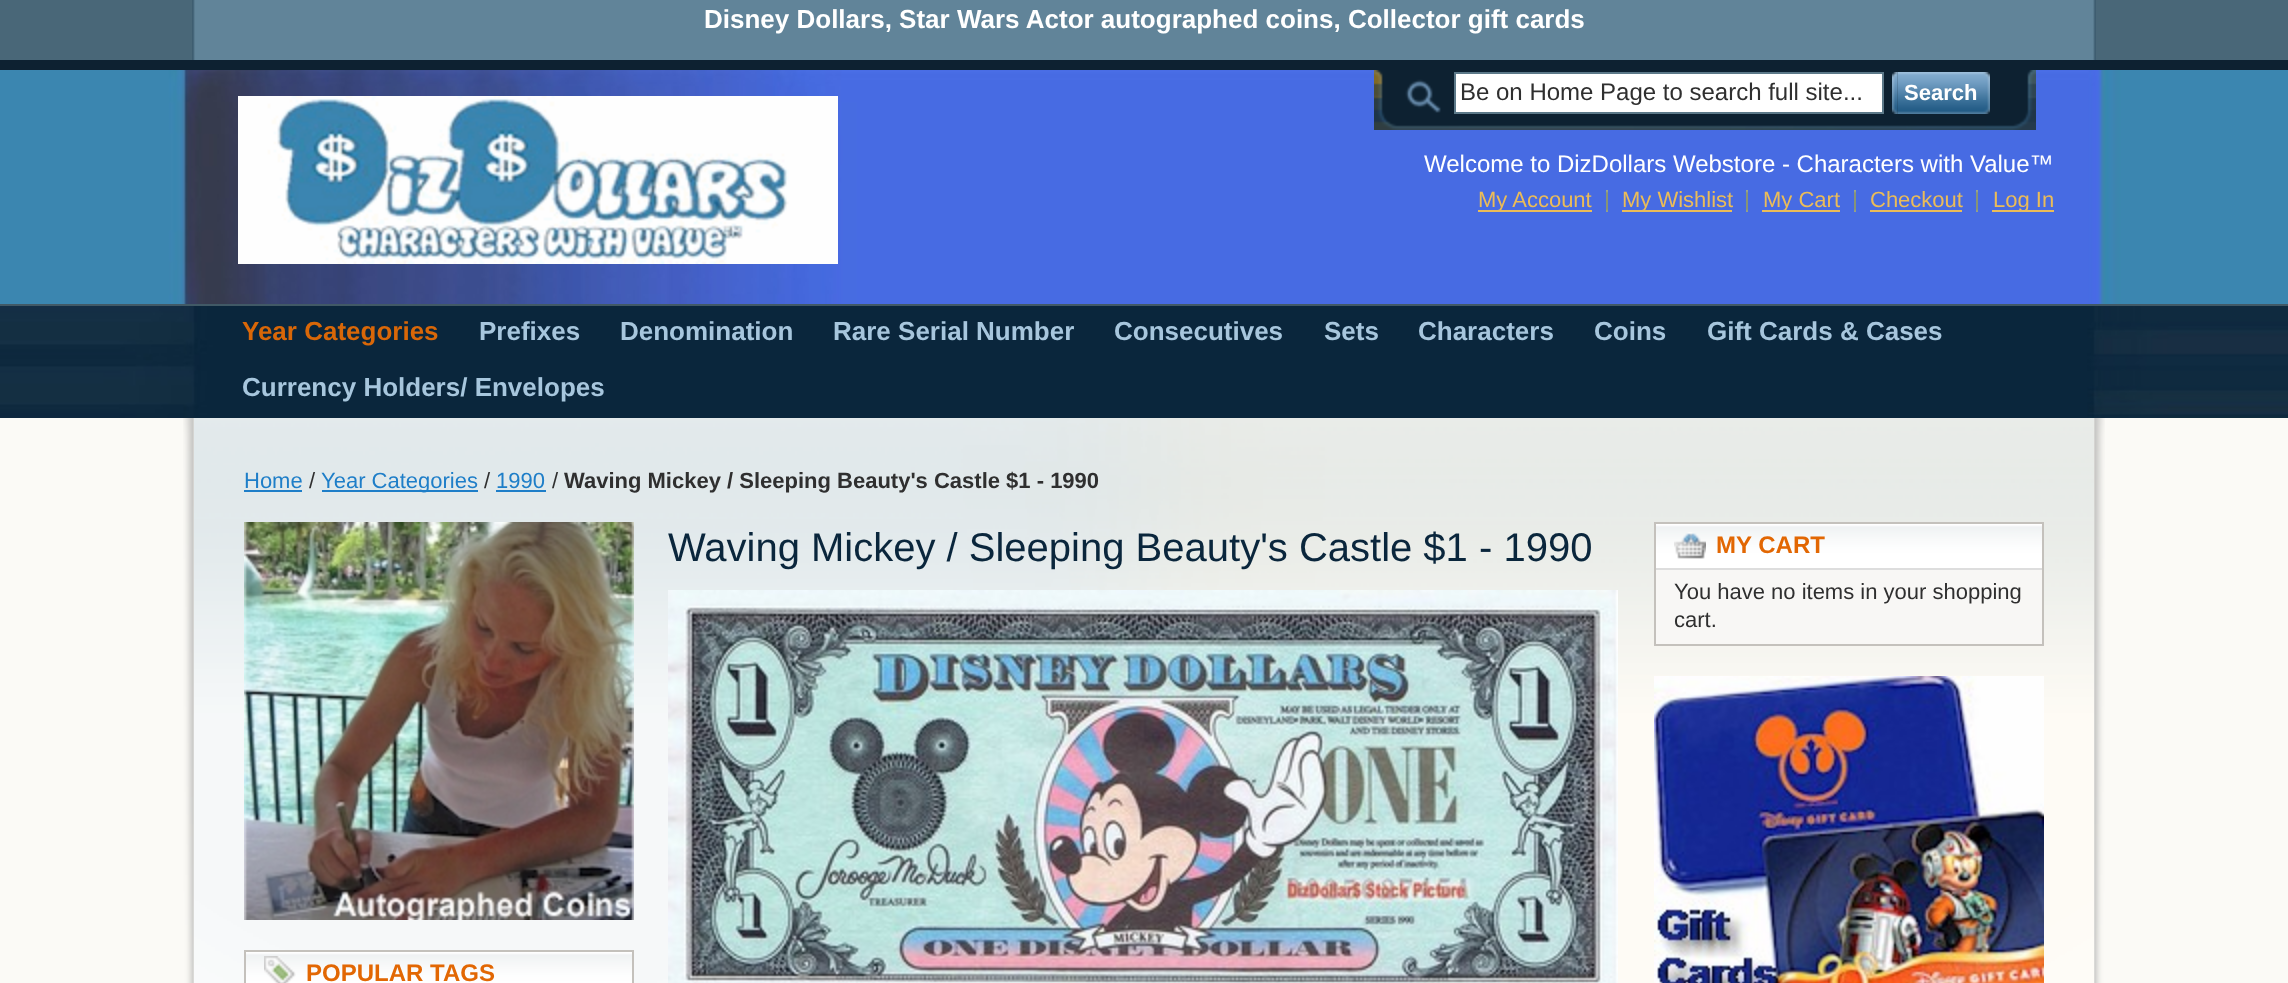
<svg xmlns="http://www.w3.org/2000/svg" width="2288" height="983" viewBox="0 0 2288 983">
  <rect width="100%" height="100%" fill="rgb(73,103,120)"/>
  <image x="192" y="0" width="1904" height="60" href="pic1.png"/>
  <text x="704" y="28" font-family="Liberation Sans" font-size="26" font-weight="bold" fill="rgb(255,255,255)">Disney Dollars, Star Wars Actor autographed coins, Collector gift cards</text>
  <image x="0" y="70" width="2288" height="234" href="pic2.png"/>
  <rect x="0" y="60" width="2288" height="10" fill="rgb(13,33,49)"/>
  <rect x="0" y="304" width="2288" height="2" fill="rgb(65,89,102)"/>
  <image x="238" y="96" width="600" height="168" href="pic3.png"/>
  <image x="1374" y="70" width="662" height="60" href="pic4.png"/>
  <rect x="1455" y="73" width="428" height="40" fill="rgb(255,255,255)" stroke="rgb(92,121,137)" stroke-width="2"/>
  <text x="1460" y="100" font-family="Liberation Sans" font-size="24" fill="rgb(47,47,47)">Be on Home Page to search full site...</text>
  <image x="1892" y="72" width="6" height="42" href="pic5.png"/>
  <image x="1898" y="72" width="92" height="42" href="pic6.png"/>
  <text x="1904" y="100" font-family="Liberation Sans" font-size="22" font-weight="bold" fill="rgb(255,255,255)">Search</text>
  <text x="1424" y="172" font-family="Liberation Sans" font-size="24" fill="rgb(255,255,255)">Welcome to DizDollars Webstore - Characters with Value™</text>
  <image x="1606" y="190" width="2" height="22" href="pic7.png"/>
  <rect x="1478" y="210" width="114" height="2" fill="rgb(235,188,88)"/>
  <text x="1478" y="207" font-family="Liberation Sans" font-size="22" fill="rgb(235,188,88)">My Account</text>
  <image x="1746" y="190" width="2" height="22" href="pic7.png"/>
  <rect x="1622" y="210" width="110" height="2" fill="rgb(235,188,88)"/>
  <text x="1622" y="207" font-family="Liberation Sans" font-size="22" fill="rgb(235,188,88)">My Wishlist</text>
  <image x="1854" y="190" width="2" height="22" href="pic7.png"/>
  <rect x="1762" y="210" width="78" height="2" fill="rgb(235,188,88)"/>
  <text x="1763" y="207" font-family="Liberation Sans" font-size="22" fill="rgb(235,188,88)">My Cart</text>
  <image x="1976" y="190" width="2" height="22" href="pic7.png"/>
  <text x="1870" y="207" font-family="Liberation Sans" font-size="22" fill="rgb(235,188,88)">Checkout</text>
  <rect x="1870" y="210" width="92" height="2" fill="rgb(235,188,88)"/>
  <rect x="1992" y="210" width="62" height="2" fill="rgb(235,188,88)"/>
  <text x="1993" y="207" font-family="Liberation Sans" font-size="22" fill="rgb(235,188,88)">Log In</text>
  <image x="0" y="306" width="2288" height="112" href="pic8.png"/>
  <text x="242" y="340" font-family="Liberation Sans" font-size="26" font-weight="bold" fill="rgb(217,103,8)">Year Categories</text>
  <g font-family="Liberation Sans" font-size="26" font-weight="bold" fill="rgb(167,198,221)">
    <text x="479" y="340">Prefixes</text>
    <text x="620" y="340">Denomination</text>
    <text x="833" y="340">Rare Serial Number</text>
    <text x="1114" y="340">Consecutives</text>
    <text x="1324" y="340">Sets</text>
    <text x="1418" y="340">Characters</text>
    <text x="1594" y="340">Coins</text>
    <text x="1707" y="340">Gift Cards &amp; Cases</text>
    <text x="242" y="396">Currency Holders/ Envelopes</text>
  </g>
  <rect x="0" y="418" width="2288" height="565" fill="rgb(251,250,246)"/>
  <image x="183" y="418" width="1922" height="565" href="pic9.png"/>
  <image x="194" y="418" width="1900" height="565" href="pic10.png"/>
  <text x="244" y="488" font-family="Liberation Sans" font-size="22" fill="rgb(30,126,200)">Home</text>
  <rect x="244" y="490" width="58" height="2" fill="rgb(30,126,200)"/>
  <text x="309" y="488" font-family="Liberation Sans" font-size="22" fill="rgb(47,47,47)">/</text>
  <rect x="322" y="490" width="156" height="2" fill="rgb(30,126,200)"/>
  <text x="321" y="488" font-family="Liberation Sans" font-size="22" fill="rgb(30,126,200)">Year Categories</text>
  <text x="484" y="488" font-family="Liberation Sans" font-size="22" fill="rgb(47,47,47)">/</text>
  <text x="496" y="488" font-family="Liberation Sans" font-size="22" fill="rgb(30,126,200)">1990</text>
  <rect x="496" y="490" width="50" height="2" fill="rgb(30,126,200)"/>
  <text x="552" y="488" font-family="Liberation Sans" font-size="22" fill="rgb(47,47,47)">/</text>
  <text x="564" y="488" font-family="Liberation Sans" font-size="22" font-weight="bold" fill="rgb(47,47,47)">Waving Mickey / Sleeping Beauty's Castle $1 - 1990</text>
  <text x="668" y="561" font-family="Liberation Sans" font-size="40" fill="rgb(10,38,60)">Waving Mickey / Sleeping Beauty's Castle $1 - 1990</text>
  <image x="668" y="590" width="950" height="393" href="pic11.png"/>
  <image x="244" y="522" width="390" height="398" href="pic12.png"/>
  <rect x="245" y="951" width="388" height="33" fill="none" stroke="rgb(196,193,188)" stroke-width="2"/>
  <image x="246" y="952" width="386" height="31" href="pic13.png"/>
  <image x="264" y="956" width="32" height="27" href="pic14.png"/>
  <text x="306" y="981" font-family="Liberation Sans" font-size="24" font-weight="bold" fill="rgb(226,103,3)">POPULAR TAGS</text>
  <rect x="1655" y="523" width="388" height="122" fill="none" stroke="rgb(196,193,188)" stroke-width="2"/>
  <image x="1656" y="524" width="386" height="44" href="pic15.png"/>
  <rect x="1656" y="568" width="386" height="2" fill="rgb(221,221,221)"/>
  <image x="1674" y="532" width="32" height="27" href="pic16.png"/>
  <text x="1716" y="553" font-family="Liberation Sans" font-size="24" font-weight="bold" fill="rgb(226,103,3)">MY CART</text>
  <rect x="1656" y="570" width="386" height="74" fill="rgb(248,247,245)"/>
  <g font-family="Liberation Sans" font-size="22" fill="rgb(47,47,47)">
    <text>
      <tspan x="1674" y="599">You have no items in your shopping</tspan>
      <tspan x="1674" y="627">cart.</tspan>
    </text>
  </g>
  <image x="1654" y="676" width="390" height="307" href="pic17.png"/>
</svg>
